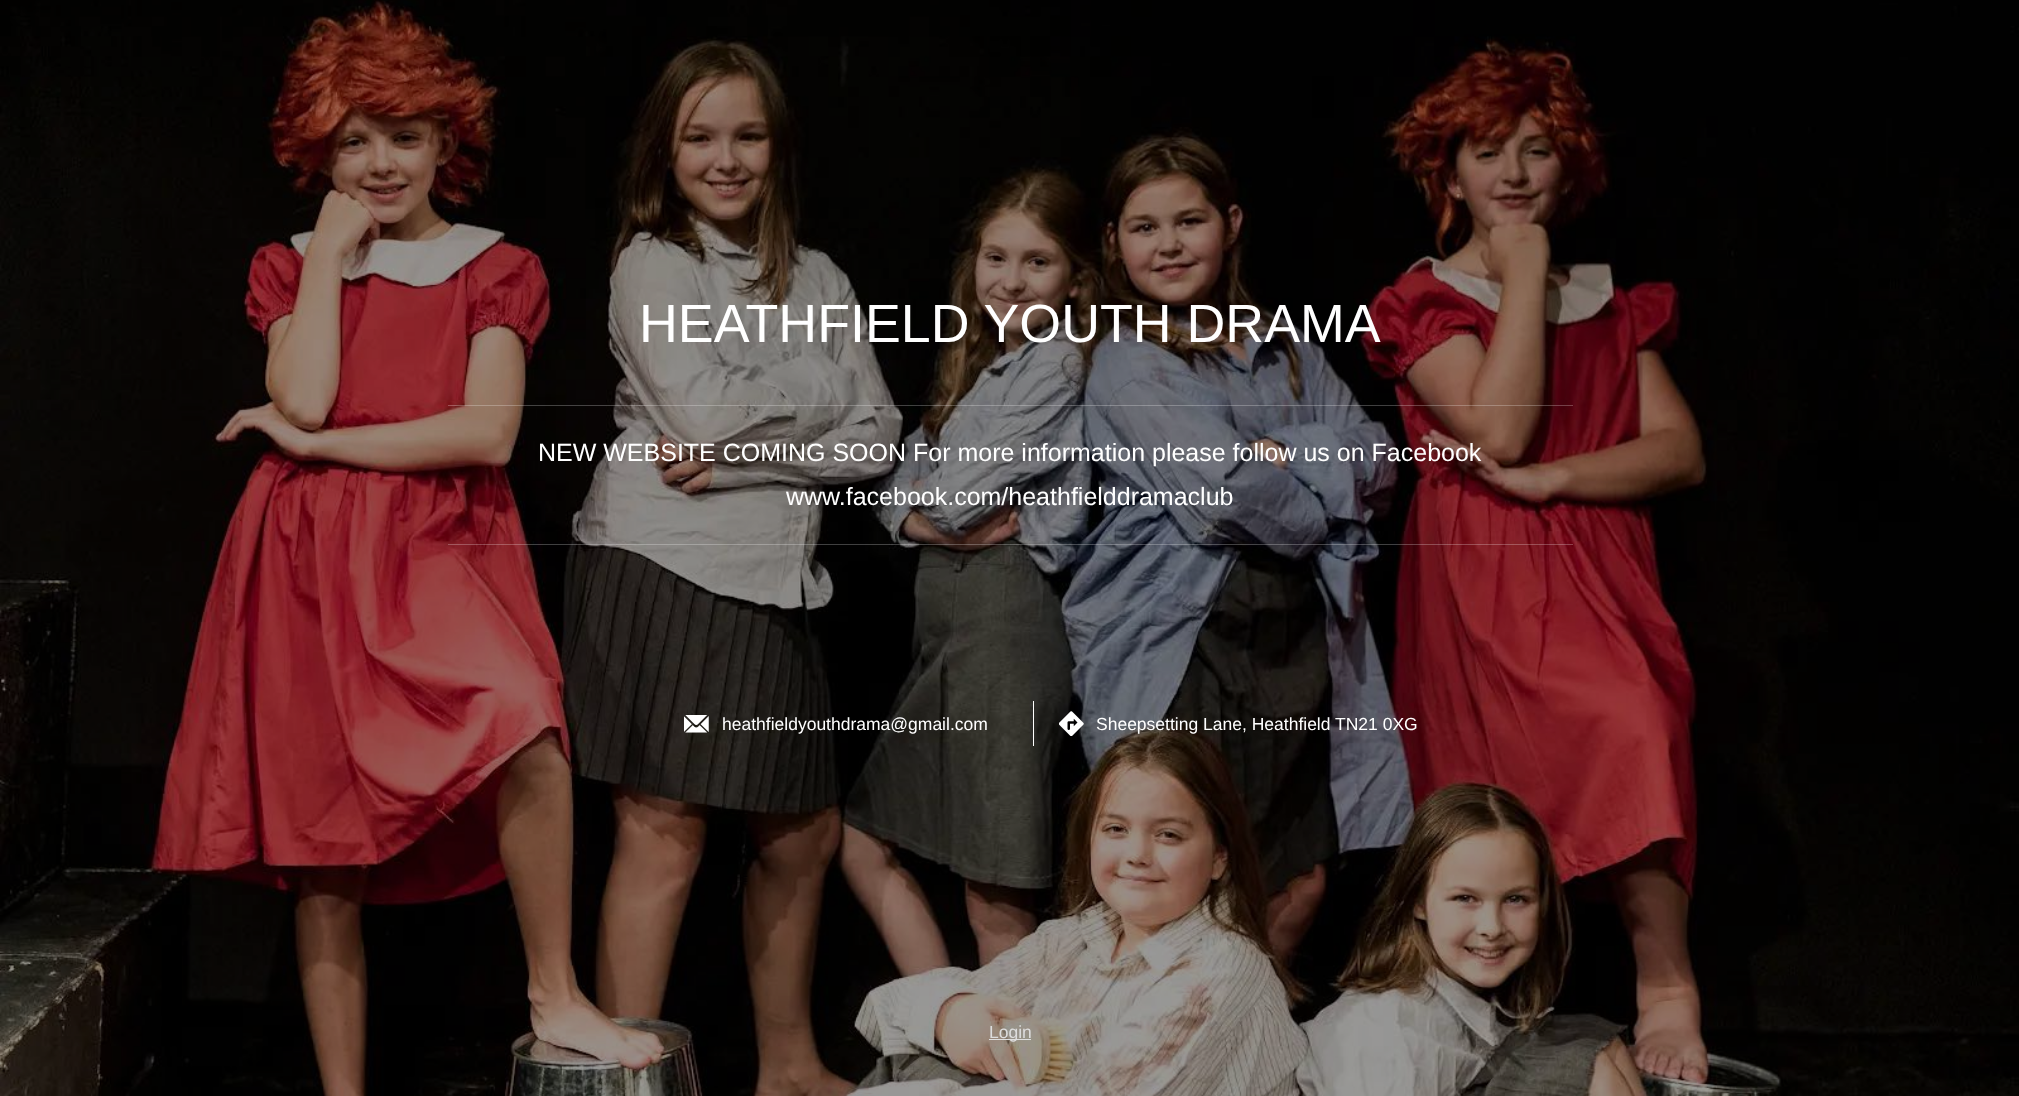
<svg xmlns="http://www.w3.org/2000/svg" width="2019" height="1096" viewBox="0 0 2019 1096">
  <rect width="100%" height="100%" fill="rgb(255,255,255)"/>
  <image x="0" y="0" width="2019" height="1096" href="pic1.png"/>
  <text x="639" y="342" font-family="Liberation Sans" font-size="53.75" fill="rgb(255,255,255)">HEATHFIELD YOUTH DRAMA</text>
  <rect x="448" y="405" width="1125" height="1" fill="rgba(255,255,255,0.25)"/>
  <rect x="448" y="544" width="1125" height="1" fill="rgba(255,255,255,0.25)"/>
  <g font-family="Liberation Sans" font-size="25" fill="rgb(255,255,255)">
    <text x="538" y="461">NEW WEBSITE COMING SOON For more information please follow us on Facebook</text>
    <text x="786" y="505">www.facebook.com/heathfielddramaclub</text>
  </g>
  <image x="684" y="715" width="25" height="18" href="pic2.png"/>
  <text x="722" y="730" font-family="Liberation Sans" font-size="17.5" fill="rgb(255,255,255)">heathfieldyouthdrama@gmail.com</text>
  <rect x="1033" y="701" width="1" height="45" fill="rgb(255,255,255)"/>
  <image x="1059" y="711" width="25" height="25" href="pic3.png"/>
  <text x="1096" y="730" font-family="Liberation Sans" font-size="17.5" fill="rgb(255,255,255)">Sheepsetting Lane, Heathfield TN21 0XG</text>
  <rect x="989" y="1039" width="42" height="1" fill="rgb(221,221,221)"/>
  <text x="989" y="1038" font-family="Liberation Sans" font-size="17.5" fill="rgb(221,221,221)">Login</text>
</svg>
